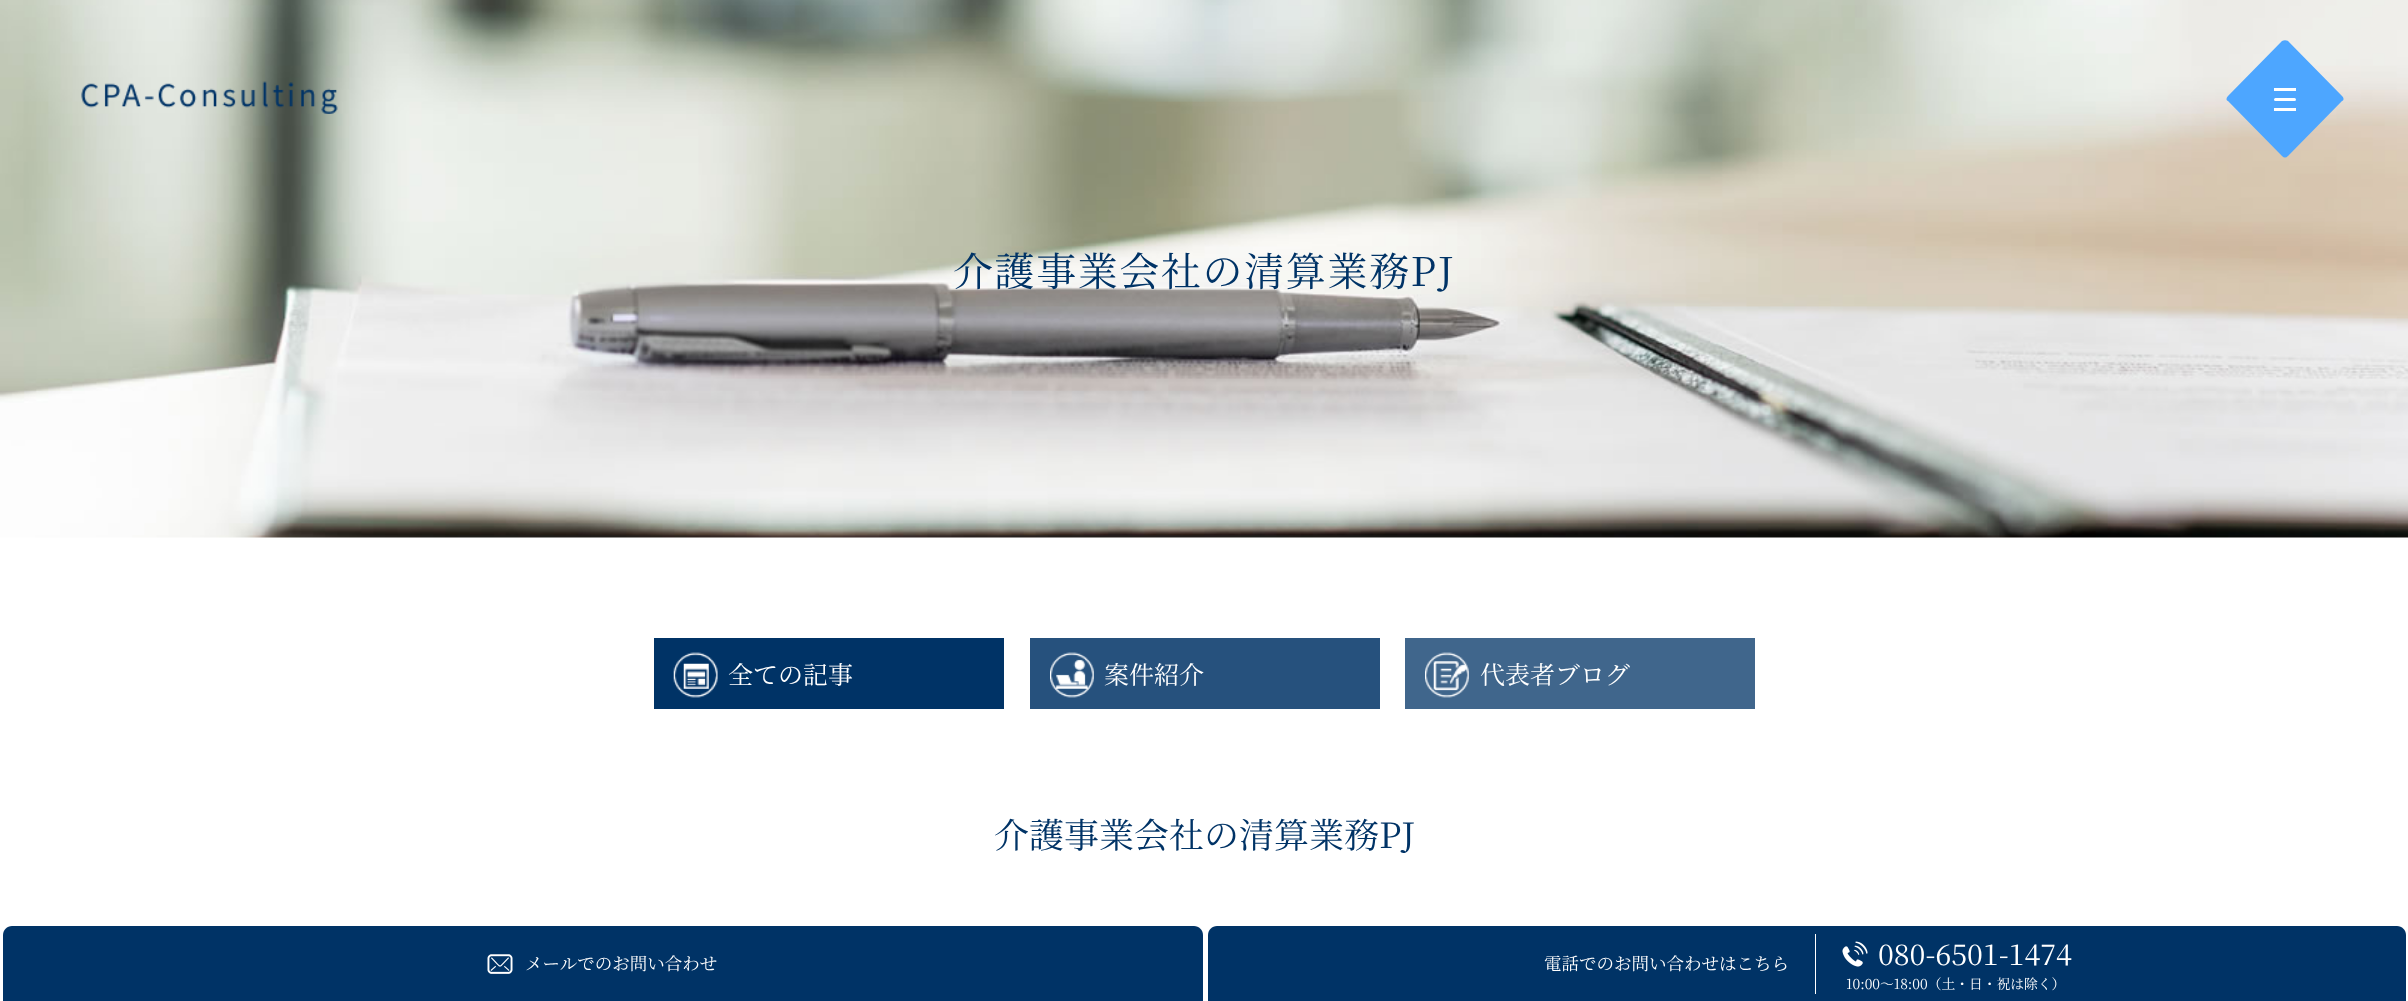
<svg xmlns="http://www.w3.org/2000/svg" width="2408" height="1001" viewBox="0 0 2408 1001">
  <rect width="100%" height="100%" fill="rgb(255,255,255)"/>
  <image x="0" y="0" width="2408" height="538" href="pic1.png"/>
  <path d="M2288 41L2342 96C2344 98 2344 100 2342 101L2288 156C2286 158 2284 158 2282 156L2228 101C2226 100 2226 98 2228 96L2282 41C2284 40 2286 40 2288 41Z" fill="rgb(77,166,255)"/>
  <rect x="2274" y="98" width="22" height="3" rx="1.5" fill="rgb(255,255,255)"/>
  <rect x="2274" y="88" width="22" height="3" fill="rgb(255,255,255)"/>
  <rect x="2274" y="108" width="22" height="3" fill="rgb(255,255,255)"/>
  <text x="953" y="286" font-family="Noto Serif JP" font-size="40" font-weight="200" letter-spacing="1.6" fill="rgb(0,51,102)">介護事業会社の清算業務PJ</text>
  <rect x="654" y="638" width="350" height="71" fill="rgb(0,51,102)"/>
  <image x="673" y="652" width="45" height="46" href="pic2.png"/>
  <text x="728" y="684" font-family="Noto Serif JP" font-size="25" font-weight="200" fill="rgb(255,255,255)">全ての記事</text>
  <rect x="1030" y="638" width="350" height="71" fill="rgb(38,81,125)"/>
  <image x="1050" y="652" width="44" height="46" href="pic3.png"/>
  <text x="1104" y="684" font-family="Noto Serif JP" font-size="25" font-weight="200" fill="rgb(255,255,255)">案件紹介</text>
  <rect x="1405" y="638" width="350" height="71" fill="rgb(64,102,140)"/>
  <image x="1425" y="652" width="44" height="46" href="pic4.png"/>
  <text x="1480" y="684" font-family="Noto Serif JP" font-size="25" font-weight="200" fill="rgb(255,255,255)">代表者ブログ</text>
  <text x="994" y="848" font-family="Noto Serif JP" font-size="35" font-weight="200" fill="rgb(0,51,102)">介護事業会社の清算業務PJ</text>
  <image x="81" y="81" width="257" height="33" href="pic5.png"/>
  <path d="M12 926H1194C1199 926 1203 930 1203 935V1001H3V935C3 930 7 926 12 926Z" fill="rgb(0,51,102)"/>
  <image x="487" y="954" width="26" height="20" href="pic6.png"/>
  <text x="525" y="970" font-family="Noto Serif JP" font-size="17.5" font-weight="200" fill="rgb(255,255,255)">メールでのお問い合わせ</text>
  <path d="M1217 926H2397C2402 926 2406 930 2406 935V1001H1208V935C1208 930 1212 926 1217 926Z" fill="rgb(0,51,102)"/>
  <text x="1544" y="970" font-family="Noto Serif JP" font-size="17.5" font-weight="200" fill="rgb(255,255,255)">電話でのお問い合わせはこちら</text>
  <rect x="1815" y="934" width="1" height="60" fill="rgb(255,255,255)"/>
  <image x="1842" y="941" width="26" height="26" href="pic7.png"/>
  <text x="1878" y="965" font-family="Noto Serif JP" font-size="28.75" font-weight="200" fill="rgb(255,255,255)">080-6501-1474</text>
  <text x="1846" y="989" font-family="Noto Serif JP" font-size="13.75" font-weight="200" fill="rgb(255,255,255)">10:00～18:00（土・日・祝は除く）</text>
</svg>
